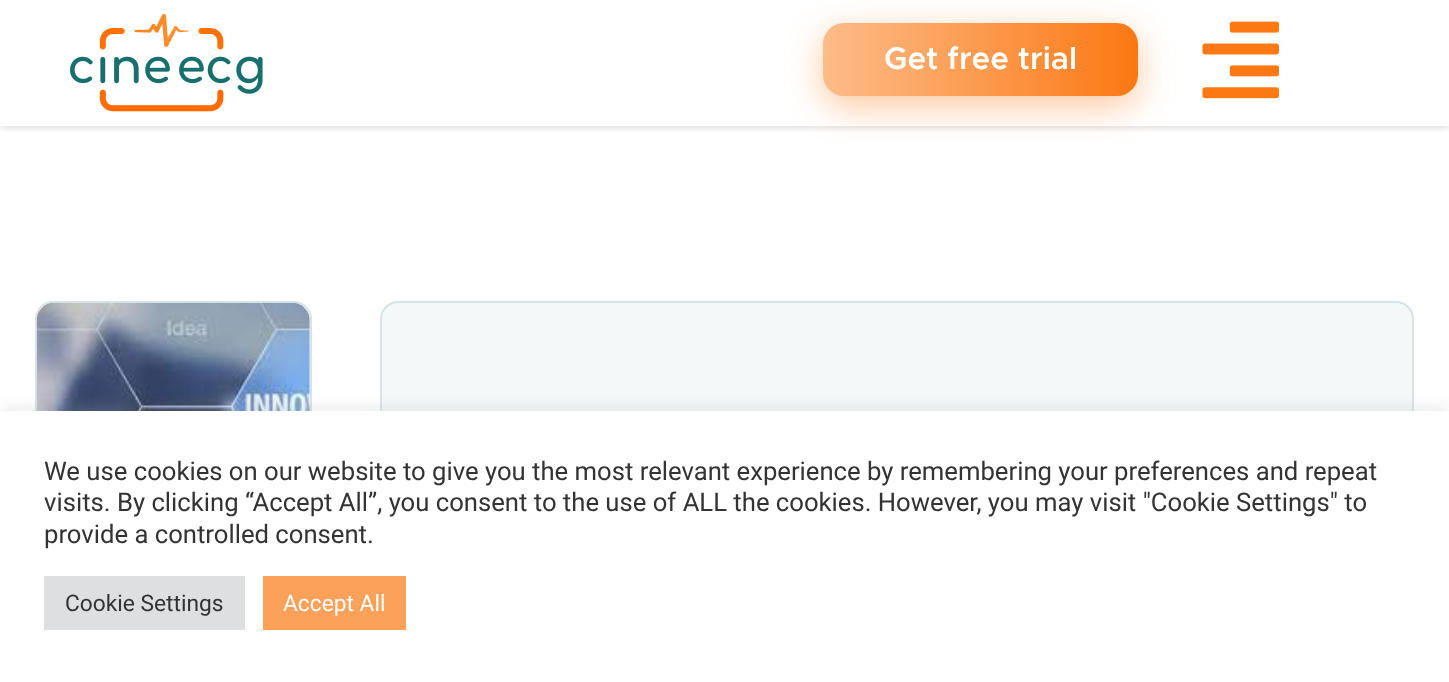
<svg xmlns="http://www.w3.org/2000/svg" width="1449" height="682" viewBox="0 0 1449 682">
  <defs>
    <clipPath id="clip1"><rect x="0" y="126" width="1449" height="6"/></clipPath>
    <linearGradient id="g1" gradientUnits="userSpaceOnUse" x1="823" y1="60" x2="1138" y2="59"><stop offset="0" stop-color="rgb(253,188,137)"/><stop offset="1" stop-color="rgb(251,120,19)"/></linearGradient>
  </defs>
  <rect width="100%" height="100%" fill="rgb(255,255,255)"/>
  <g clip-path="url(#clip1)">
    <rect x="0" y="0" width="1449" height="126" fill="rgba(0,0,0,0.2)" filter="blur(4.5px)"/>
  </g>
  <image x="70" y="14" width="193" height="98" href="pic1.png"/>
  <rect x="823" y="33" width="315" height="74" rx="21" fill="rgba(251,120,19,0.4)" filter="blur(17.5px)"/>
  <rect x="823" y="23" width="315" height="73" rx="21" fill="url(#g1)"/>
  <text x="884" y="69" font-family="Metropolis" font-size="31.5" font-weight="600" fill="rgb(255,255,255)">Get free trial</text>
  <image x="1202" y="21" width="78" height="78" href="pic2.png"/>
  <rect x="36" y="302" width="275" height="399" rx="17" fill="rgb(244,248,249)" stroke="rgb(215,228,231)" stroke-width="2"/>
  <image x="36" y="302" width="274" height="109" href="pic3.png"/>
  <rect x="381" y="302" width="1032" height="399" rx="17" fill="rgb(244,248,249)" stroke="rgb(215,228,231)" stroke-width="2"/>
  <rect x="0" y="410" width="1449" height="271" fill="rgba(172,171,171,0.3)" filter="blur(9px)"/>
  <rect x="0" y="411" width="1449" height="271" fill="rgb(255,255,255)"/>
  <g font-family="Roboto" font-size="25.67" fill="rgb(51,51,51)">
    <text>
      <tspan x="44" y="480">We use cookies on our website to give you the most relevant experience by remembering your preferences and repeat</tspan>
      <tspan x="44" y="511">visits. By clicking “Accept All”, you consent to the use of ALL the cookies. However, you may visit "Cookie Settings" to</tspan>
      <tspan x="44" y="543">provide a controlled consent.</tspan>
    </text>
  </g>
  <rect x="44" y="576" width="201" height="54" fill="rgb(222,223,224)"/>
  <text x="65" y="611" font-family="Roboto" font-size="22.75" fill="rgb(51,51,51)">Cookie Settings</text>
  <rect x="263" y="576" width="143" height="54" fill="rgb(252,161,90)"/>
  <text x="283" y="611" font-family="Roboto" font-size="22.75" fill="rgb(255,255,255)">Accept All</text>
</svg>
